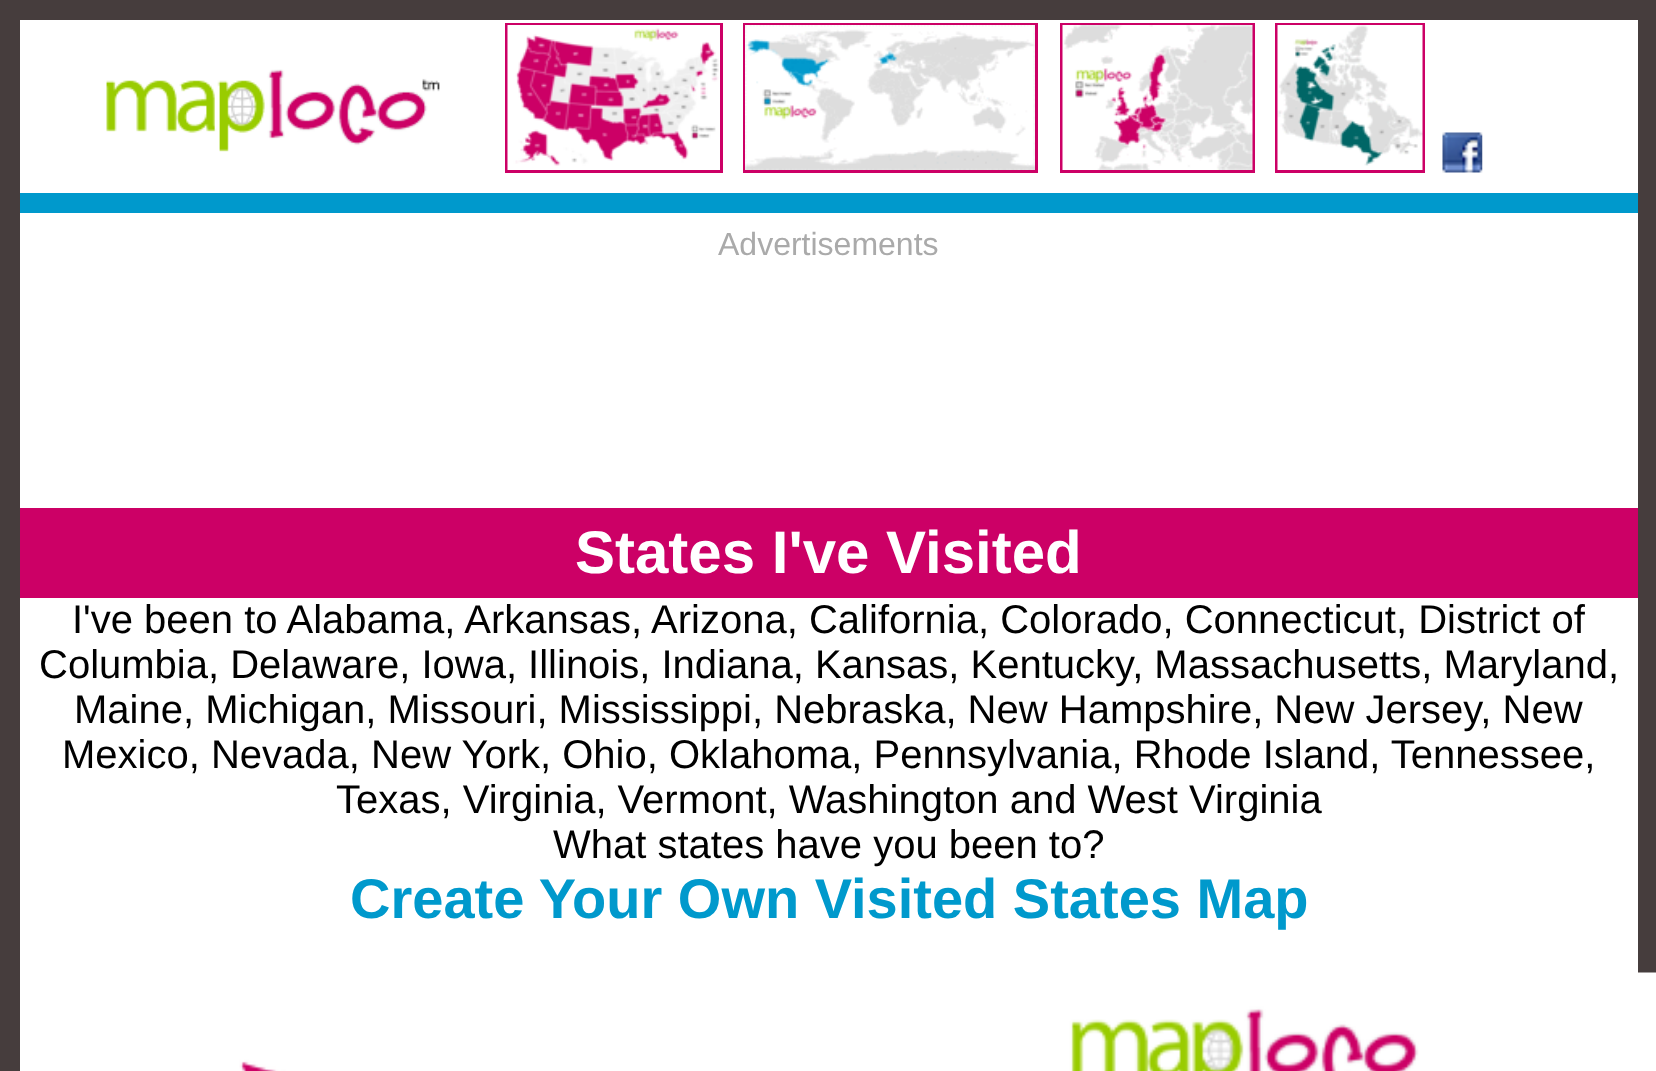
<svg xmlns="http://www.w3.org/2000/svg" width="1656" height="1071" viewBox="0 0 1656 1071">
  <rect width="100%" height="100%" fill="rgb(70,61,61)"/>
  <rect x="20" y="20" width="1618" height="1051" fill="rgb(255,255,255)"/>
  <rect x="20" y="193" width="1618" height="20" fill="rgb(0,153,204)"/>
  <image x="106" y="69" width="334" height="83" href="pic1.png"/>
  <rect x="506.5" y="24.5" width="215" height="147" fill="none" stroke="rgb(204,0,102)" stroke-width="3"/>
  <rect x="744.5" y="24.5" width="292" height="147" fill="none" stroke="rgb(204,0,102)" stroke-width="3"/>
  <rect x="1061.5" y="24.5" width="192" height="147" fill="none" stroke="rgb(204,0,102)" stroke-width="3"/>
  <rect x="1276.5" y="24.5" width="147" height="147" fill="none" stroke="rgb(204,0,102)" stroke-width="3"/>
  <image x="507" y="25" width="213" height="145" href="pic2.png"/>
  <image x="745" y="25" width="290" height="145" href="pic3.png"/>
  <image x="1062" y="25" width="191" height="145" href="pic4.png"/>
  <image x="1277" y="25" width="146" height="145" href="pic5.png"/>
  <image x="1442" y="132" width="41" height="41" href="pic6.png"/>
  <text x="718" y="255" font-family="Liberation Sans" font-size="32" fill="rgb(170,170,170)">Advertisements</text>
  <rect x="20" y="508" width="1618" height="90" fill="rgb(204,0,102)"/>
  <text x="575" y="573" font-family="Liberation Sans" font-size="60" font-weight="bold" fill="rgb(255,255,255)">States I've Visited</text>
  <g font-family="Liberation Sans" font-size="40" fill="rgb(0,0,0)">
    <text x="72" y="633">I've been to Alabama, Arkansas, Arizona, California, Colorado, Connecticut, District of</text>
    <text x="39" y="678">Columbia, Delaware, Iowa, Illinois, Indiana, Kansas, Kentucky, Massachusetts, Maryland,</text>
    <text x="74" y="723">Maine, Michigan, Missouri, Mississippi, Nebraska, New Hampshire, New Jersey, New</text>
    <text x="62" y="768">Mexico, Nevada, New York, Ohio, Oklahoma, Pennsylvania, Rhode Island, Tennessee,</text>
    <text x="336" y="813">Texas, Virginia, Vermont, Washington and West Virginia</text>
    <text x="553" y="858">What states have you been to?</text>
  </g>
  <text x="350" y="918" font-family="Liberation Sans" font-size="56" font-weight="bold" fill="rgb(0,153,204)">Create Your Own Visited States Map</text>
  <image x="239" y="972" width="1417" height="99" href="pic7.png"/>
</svg>
